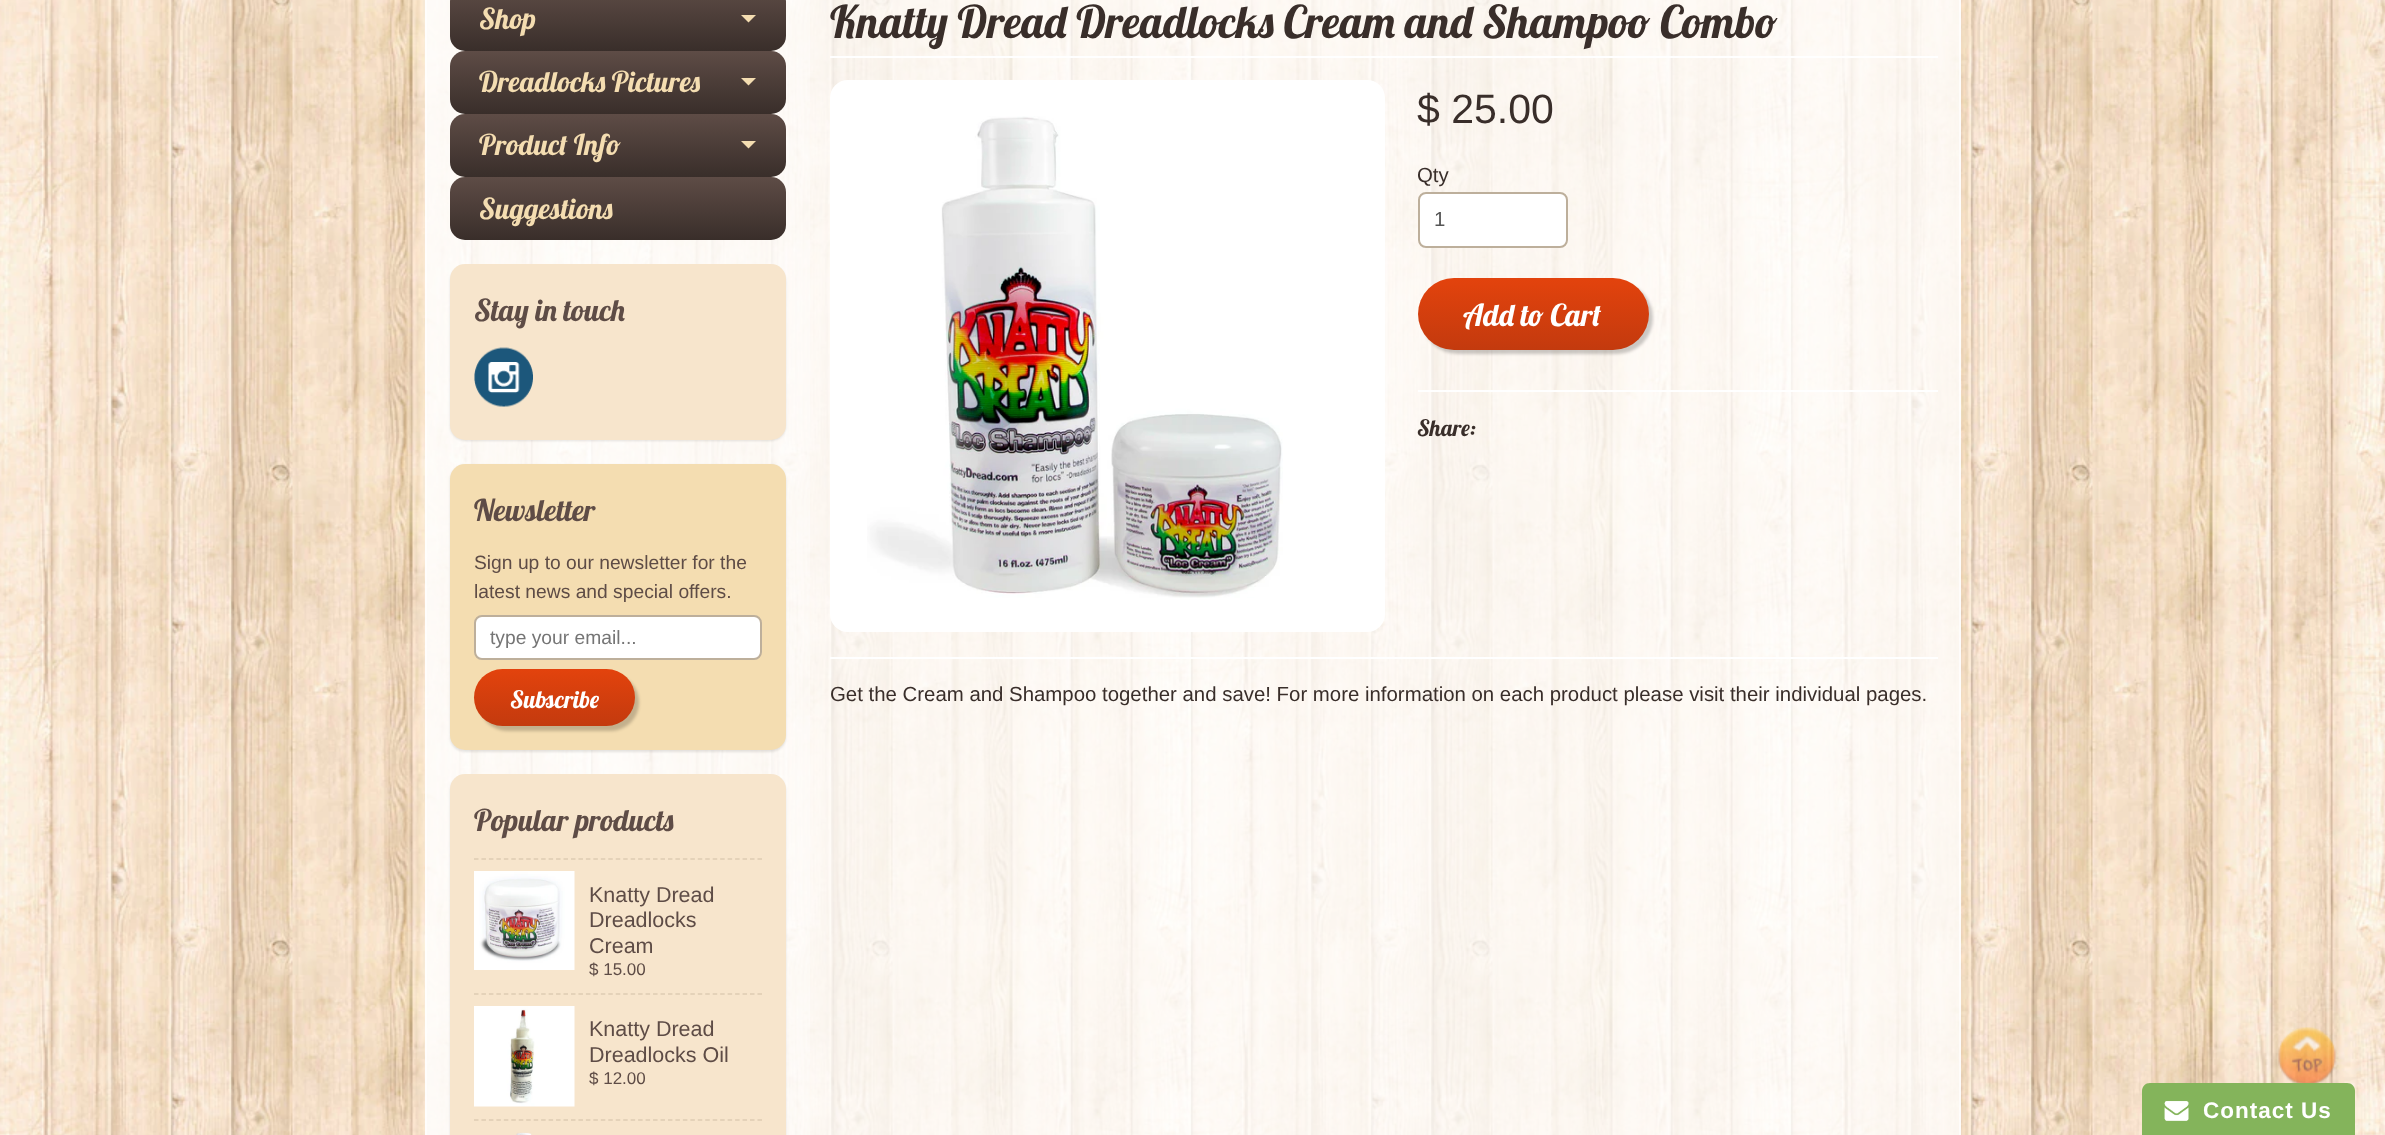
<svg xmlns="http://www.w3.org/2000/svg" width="2385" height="1135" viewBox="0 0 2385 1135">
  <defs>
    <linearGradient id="g1" gradientUnits="userSpaceOnUse" x1="618" y1="-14" x2="618" y2="51"><stop offset="0" stop-color="rgb(94,76,70)"/><stop offset="1" stop-color="rgb(57,46,42)"/></linearGradient>
    <linearGradient id="g2" gradientUnits="userSpaceOnUse" x1="618" y1="51" x2="618" y2="114"><stop offset="0" stop-color="rgb(94,76,70)"/><stop offset="1" stop-color="rgb(57,46,42)"/></linearGradient>
    <linearGradient id="g3" gradientUnits="userSpaceOnUse" x1="618" y1="114" x2="618" y2="177"><stop offset="0" stop-color="rgb(94,76,70)"/><stop offset="1" stop-color="rgb(57,46,42)"/></linearGradient>
    <linearGradient id="g4" gradientUnits="userSpaceOnUse" x1="618" y1="177" x2="618" y2="240"><stop offset="0" stop-color="rgb(94,76,70)"/><stop offset="1" stop-color="rgb(57,46,42)"/></linearGradient>
    <linearGradient id="g5" gradientUnits="userSpaceOnUse" x1="554" y1="669" x2="554" y2="726"><stop offset="0" stop-color="rgb(227,67,13)"/><stop offset="1" stop-color="rgb(195,58,14)"/></linearGradient>
    <linearGradient id="g6" gradientUnits="userSpaceOnUse" x1="1533" y1="278" x2="1533" y2="350"><stop offset="0" stop-color="rgb(227,67,13)"/><stop offset="1" stop-color="rgb(195,58,14)"/></linearGradient>
  </defs>
  <rect width="100%" height="100%" fill="rgb(255,255,255)"/>
  <image x="0" y="0" width="2385" height="1135" href="pic1.png"/>
  <rect x="425" y="0" width="1536" height="1135" fill="rgba(255,255,255,0.75)"/>
  <rect x="426" y="-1" width="1534" height="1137" fill="none" stroke="rgba(255,255,255,0.7)" stroke-width="2"/>
  <rect x="427" y="0" width="383" height="1135" fill="rgba(255,255,255,0.25)"/>
  <rect x="450" y="-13" width="336" height="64" rx="15" fill="url(#g1)"/>
  <text x="479" y="29" font-family="Lobster" font-size="28.75" fill="rgb(244,221,177)">Shop</text>
  <path d="M741 15H756L748.5 22.5Z" fill="rgb(244,221,177)"/>
  <rect x="450" y="51" width="336" height="63" rx="15" fill="url(#g2)"/>
  <text x="479" y="92" font-family="Lobster" font-size="28.75" fill="rgb(244,221,177)">Dreadlocks Pictures</text>
  <path d="M741 78H756L748.5 85.5Z" fill="rgb(244,221,177)"/>
  <rect x="450" y="114" width="336" height="63" rx="15" fill="url(#g3)"/>
  <text x="479" y="155" font-family="Lobster" font-size="28.75" fill="rgb(244,221,177)">Product Info</text>
  <path d="M741 141H756L748.5 148.5Z" fill="rgb(244,221,177)"/>
  <rect x="450" y="177" width="336" height="63" rx="15" fill="url(#g4)"/>
  <text x="479" y="219" font-family="Lobster" font-size="28.75" fill="rgb(244,221,177)">Suggestions</text>
  <rect x="450" y="266" width="336" height="175" rx="15" fill="rgba(0,0,0,0.1)" filter="blur(1px)"/>
  <rect x="450" y="264" width="336" height="176" rx="15" fill="rgb(247,229,204)"/>
  <text x="474" y="321" font-family="Lobster" font-size="30" fill="rgb(94,76,70)">Stay in touch</text>
  <image x="474" y="347" width="59" height="60" href="pic2.png"/>
  <rect x="450" y="465" width="336" height="287" rx="15" fill="rgba(0,0,0,0.1)" filter="blur(1px)"/>
  <rect x="450" y="464" width="336" height="286" rx="15" fill="rgb(244,221,177)"/>
  <text x="474" y="521" font-family="Lobster" font-size="30" fill="rgb(94,76,70)">Newsletter</text>
  <g font-family="Liberation Sans" font-size="19.25" fill="rgb(94,76,70)">
    <text>
      <tspan x="474" y="569">Sign up to our newsletter for the</tspan>
      <tspan x="474" y="598">latest news and special offers.</tspan>
    </text>
  </g>
  <rect x="475" y="616" width="286" height="43" rx="7" fill="rgb(255,255,255)" stroke="rgb(189,175,155)" stroke-width="2"/>
  <text x="490" y="644" font-family="Liberation Sans" font-size="19.25" fill="rgb(117,117,117)">type your email...</text>
  <rect x="479" y="674" width="160" height="57" rx="28.5" fill="rgba(0,0,0,0.2)" filter="blur(1.5px)"/>
  <rect x="474" y="669" width="161" height="57" rx="28.5" fill="url(#g5)"/>
  <text x="510" y="708" font-family="Lobster" font-size="24" fill="rgb(255,255,255)">Subscribe</text>
  <rect x="450" y="776" width="336" height="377" rx="15" fill="rgba(0,0,0,0.1)" filter="blur(1px)"/>
  <rect x="450" y="774" width="336" height="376" rx="15" fill="rgb(247,229,204)"/>
  <text x="474" y="831" font-family="Lobster" font-size="30" fill="rgb(94,76,70)">Popular products</text>
  <path d="M474 859H762" fill="none" stroke="rgb(222,204,178)" stroke-width="1.5" stroke-dasharray="4.5 2.96"/>
  <image x="474" y="871" width="101" height="99" href="pic3.png"/>
  <g font-family="Liberation Sans" font-size="21.5" fill="rgb(94,76,70)">
    <text>
      <tspan x="589" y="902">Knatty Dread</tspan>
      <tspan x="589" y="927">Dreadlocks</tspan>
      <tspan x="589" y="953">Cream</tspan>
    </text>
  </g>
  <text x="589" y="975" font-family="Liberation Sans" font-size="17" fill="rgb(94,76,70)">$ 15.00</text>
  <path d="M474 994H762" fill="none" stroke="rgb(222,204,178)" stroke-width="1.5" stroke-dasharray="4.5 2.96"/>
  <image x="474" y="1006" width="101" height="101" href="pic4.png"/>
  <g font-family="Liberation Sans" font-size="21.5" fill="rgb(94,76,70)">
    <text>
      <tspan x="589" y="1036">Knatty Dread</tspan>
      <tspan x="589" y="1062">Dreadlocks Oil</tspan>
    </text>
  </g>
  <text x="589" y="1084" font-family="Liberation Sans" font-size="17" fill="rgb(94,76,70)">$ 12.00</text>
  <path d="M474 1120H762" fill="none" stroke="rgb(222,204,178)" stroke-width="1.5" stroke-dasharray="4.5 2.96"/>
  <image x="516" y="1132" width="16" height="3" href="pic5.png"/>
  <rect x="830" y="56" width="1108" height="2" fill="rgb(255,255,255)"/>
  <text x="830" y="38" font-family="Lobster" font-size="44.9" fill="rgb(57,46,42)">Knatty Dread Dreadlocks Cream and Shampoo Combo</text>
  <rect x="831" y="81" width="553" height="550" rx="17" fill="rgb(255,255,255)" stroke="rgb(255,255,255)" stroke-width="2"/>
  <image x="867" y="116" width="416" height="482" href="pic6.png"/>
  <text x="1417" y="123" font-family="Liberation Sans" font-size="41" fill="rgb(57,46,42)">$ 25.00</text>
  <text x="1417" y="182" font-family="Liberation Sans" font-size="20.4" fill="rgb(57,46,42)">Qty</text>
  <rect x="1419" y="193" width="148" height="54" rx="7" fill="rgb(255,255,255)" stroke="rgb(189,175,155)" stroke-width="2"/>
  <text x="1434" y="226" font-family="Liberation Sans" font-size="20.4" fill="rgb(85,85,85)">1</text>
  <rect x="1422" y="282" width="231" height="72" rx="36" fill="rgba(0,0,0,0.2)" filter="blur(1.5px)"/>
  <rect x="1418" y="278" width="231" height="72" rx="36" fill="url(#g6)"/>
  <text x="1463" y="326" font-family="Lobster" font-size="30.5" fill="rgb(255,255,255)">Add to Cart</text>
  <rect x="1418" y="390" width="520" height="2" fill="rgb(255,255,255)"/>
  <text x="1417" y="436" font-family="Lobster" font-size="22.5" fill="rgb(57,46,42)">Share:</text>
  <rect x="830" y="657" width="1108" height="2" fill="rgb(255,255,255)"/>
  <text x="830" y="701" font-family="Liberation Sans" font-size="20.4" fill="rgb(57,46,42)">Get the Cream and Shampoo together and save! For more information on each product please visit their individual pages.</text>
  <image x="2278" y="1027" width="58" height="56" href="pic7.png"/>
  <path d="M2150 1083H2347C2351.5 1083 2355 1086.5 2355 1091V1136H2142V1091C2142 1086.5 2145.5 1083 2150 1083Z" fill="rgb(132,180,91)"/>
  <image x="2164" y="1101" width="25" height="20" href="pic8.png"/>
  <text x="2203" y="1118" font-family="Liberation Sans" font-size="22.5" font-weight="bold" letter-spacing="1" fill="rgb(255,255,255)">Contact Us</text>
</svg>
